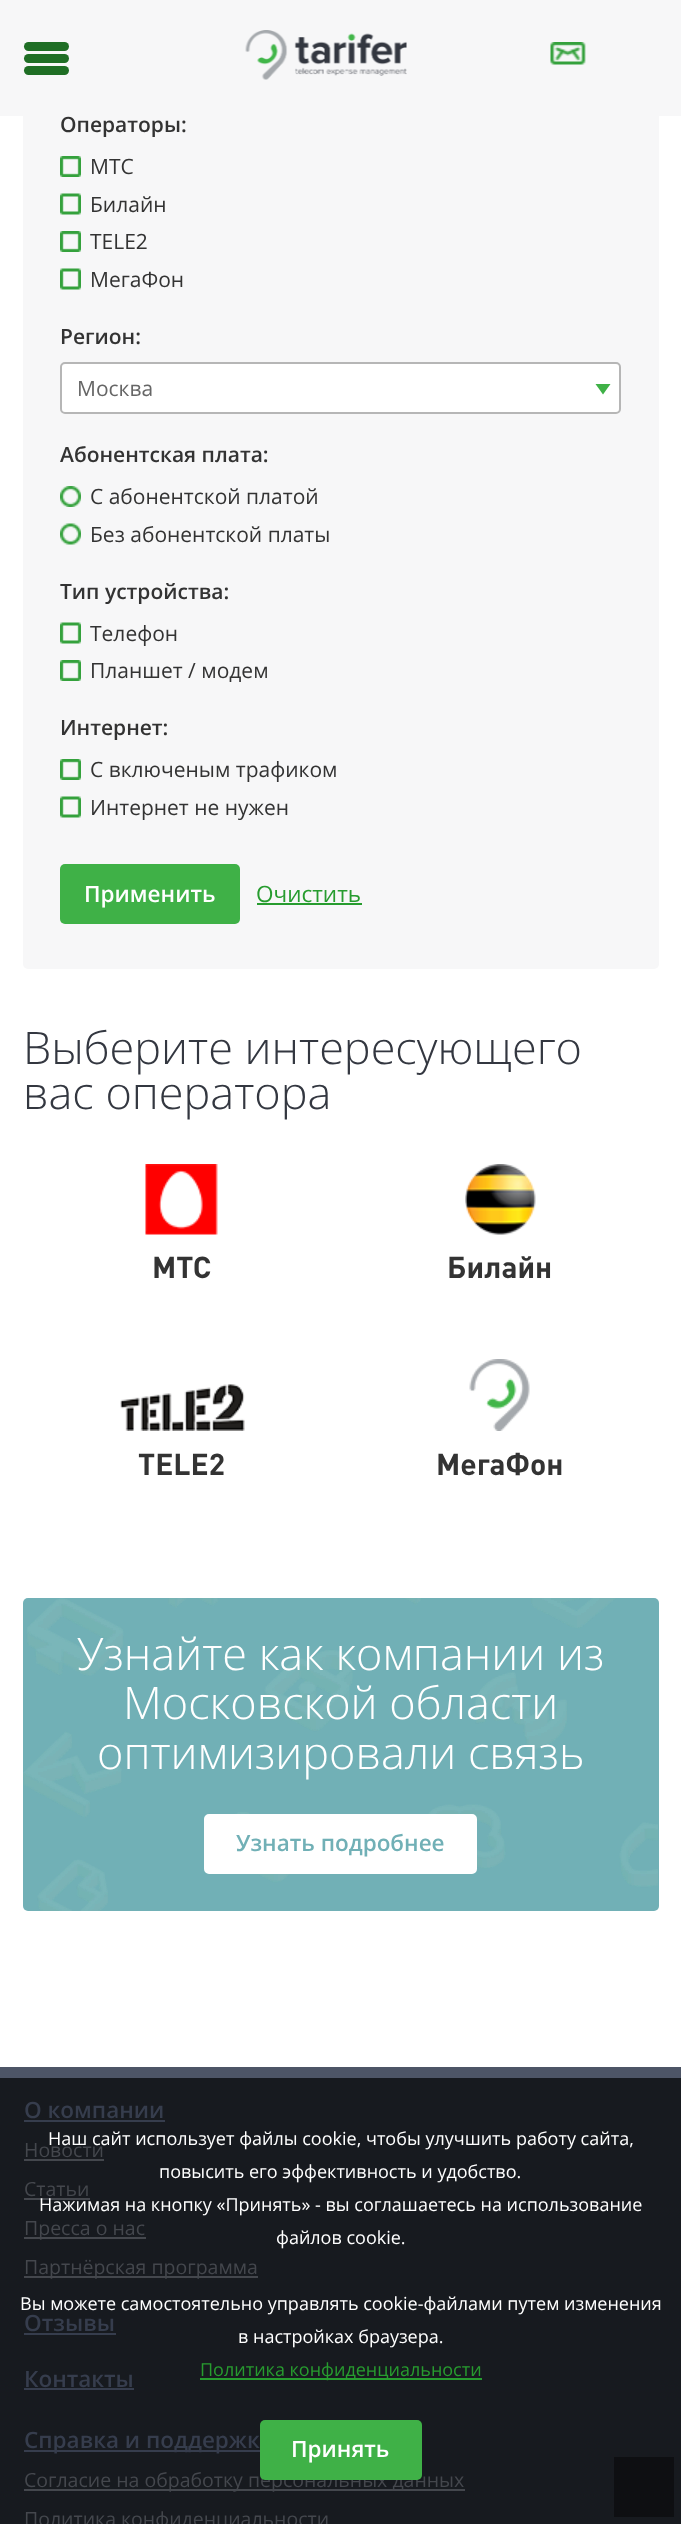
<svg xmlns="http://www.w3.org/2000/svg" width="681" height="2524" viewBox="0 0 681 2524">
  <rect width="100%" height="100%" fill="rgb(255,255,255)"/>
  <rect x="23" y="78" width="636" height="891" rx="5" fill="rgb(247,247,248)"/>
  <rect x="0" y="0" width="681" height="116" fill="rgb(247,247,248)"/>
  <rect x="24" y="42" width="45" height="9" rx="4.5" fill="rgb(31,110,37)"/>
  <rect x="24" y="54" width="45" height="9" rx="4.5" fill="rgb(31,110,37)"/>
  <rect x="24" y="66" width="45" height="9" rx="4.5" fill="rgb(31,110,37)"/>
  <image x="245" y="30" width="162" height="50" href="pic1.png"/>
  <image x="550" y="42" width="36" height="23" href="pic2.png"/>
  <text x="60" y="132" font-family="Open Sans" font-size="21" font-weight="600" fill="rgb(51,51,51)">Операторы:</text>
  <image x="60" y="156" width="21" height="21" href="pic3.png"/>
  <text x="90" y="174" font-family="Open Sans" font-size="21" fill="rgb(51,51,51)">МТС</text>
  <image x="60" y="193" width="21" height="22" href="pic4.png"/>
  <text x="90" y="212" font-family="Open Sans" font-size="21" fill="rgb(51,51,51)">Билайн</text>
  <image x="60" y="231" width="21" height="21" href="pic3.png"/>
  <text x="90" y="249" font-family="Open Sans" font-size="21" fill="rgb(51,51,51)">TELE2</text>
  <image x="60" y="268" width="21" height="22" href="pic4.png"/>
  <text x="90" y="287" font-family="Open Sans" font-size="21" fill="rgb(51,51,51)">МегаФон</text>
  <text x="60" y="344" font-family="Open Sans" font-size="21" font-weight="600" fill="rgb(51,51,51)">Регион:</text>
  <rect x="61" y="363" width="559" height="50" rx="4" fill="rgb(255,255,255)" stroke="rgb(182,182,182)" stroke-width="2"/>
  <text x="77" y="396" font-family="Open Sans" font-size="21" fill="rgb(102,102,102)">Москва</text>
  <path d="M595.5 384H610.5L603 394.5Z" fill="rgb(63,177,71)"/>
  <text x="60" y="462" font-family="Open Sans" font-size="21" font-weight="600" fill="rgb(51,51,51)">Абонентская плата:</text>
  <image x="60" y="486" width="21" height="21" href="pic5.png"/>
  <text x="90" y="504" font-family="Open Sans" font-size="21" fill="rgb(51,51,51)">С абонентской платой</text>
  <image x="60" y="523" width="21" height="22" href="pic6.png"/>
  <text x="90" y="542" font-family="Open Sans" font-size="21" fill="rgb(51,51,51)">Без абонентской платы</text>
  <text x="60" y="599" font-family="Open Sans" font-size="21" font-weight="600" fill="rgb(51,51,51)">Тип устройства:</text>
  <image x="60" y="622" width="21" height="22" href="pic4.png"/>
  <text x="90" y="641" font-family="Open Sans" font-size="21" fill="rgb(51,51,51)">Телефон</text>
  <image x="60" y="660" width="21" height="21" href="pic3.png"/>
  <text x="90" y="678" font-family="Open Sans" font-size="21" fill="rgb(51,51,51)">Планшет / модем</text>
  <text x="60" y="735" font-family="Open Sans" font-size="21" font-weight="600" fill="rgb(51,51,51)">Интернет:</text>
  <image x="60" y="759" width="21" height="21" href="pic3.png"/>
  <text x="90" y="777" font-family="Open Sans" font-size="21" fill="rgb(51,51,51)">С включеным трафиком</text>
  <image x="60" y="796" width="21" height="22" href="pic4.png"/>
  <text x="90" y="815" font-family="Open Sans" font-size="21" fill="rgb(51,51,51)">Интернет не нужен</text>
  <rect x="60" y="864" width="180" height="60" rx="5" fill="rgb(63,177,71)"/>
  <text x="84" y="902" font-family="Open Sans" font-size="22.5" font-weight="600" fill="rgb(255,255,255)">Применить</text>
  <text x="256" y="902" font-family="Open Sans" font-size="22.5" fill="rgb(39,156,47)">Очистить</text>
  <rect x="257" y="903" width="105" height="2" fill="rgb(39,156,47)"/>
  <g font-family="Open Sans" font-size="45" font-weight="300" fill="rgb(51,55,64)">
    <text>
      <tspan x="23" y="1064">Выберите интересующего</tspan>
      <tspan x="23" y="1109">вас оператора</tspan>
    </text>
  </g>
  <image x="145" y="1164" width="73" height="71" href="pic7.png"/>
  <text x="152" y="1278" font-family="DIN" font-size="30" font-weight="bold" fill="rgb(51,51,51)">МТС</text>
  <image x="465" y="1164" width="71" height="71" href="pic8.png"/>
  <text x="447" y="1278" font-family="DIN" font-size="30" font-weight="bold" fill="rgb(51,51,51)">Билайн</text>
  <image x="120" y="1384" width="125" height="47" href="pic9.png"/>
  <text x="138" y="1475" font-family="DIN" font-size="30" font-weight="bold" fill="rgb(51,51,51)">TELE2</text>
  <image x="469" y="1359" width="61" height="72" href="pic10.png"/>
  <text x="436" y="1475" font-family="DIN" font-size="30" font-weight="bold" fill="rgb(51,51,51)">МегаФон</text>
  <rect x="23" y="1598" width="636" height="313" rx="5" fill="rgb(113,176,182)"/>
  <image x="23" y="1598" width="635" height="313" href="pic11.png"/>
  <g font-family="Open Sans" font-size="45" font-weight="300" fill="rgb(255,255,255)">
    <text x="77" y="1670">Узнайте как компании из</text>
    <text x="123" y="1719">Московской области</text>
    <text x="97" y="1769">оптимизировали связь</text>
  </g>
  <rect x="205" y="1815" width="271" height="58" rx="4" fill="rgb(255,255,255)" stroke="rgb(255,255,255)" stroke-width="2"/>
  <text x="236" y="1851" font-family="Open Sans" font-size="22.5" font-weight="600" fill="rgb(113,176,182)">Узнать подробнее</text>
  <rect x="0" y="2067" width="681" height="11" fill="rgb(77,85,102)"/>
  <rect x="0" y="2078" width="681" height="446" fill="rgb(23,26,31)"/>
  <text x="24" y="2118" font-family="Open Sans" font-size="22.5" font-weight="600" fill="rgb(54,61,77)">О компании</text>
  <rect x="24" y="2120" width="141" height="2" fill="rgb(54,61,77)"/>
  <text x="24" y="2157" font-family="Open Sans" font-size="19.5" fill="rgb(68,71,77)">Новости</text>
  <rect x="24" y="2159" width="80" height="2" fill="rgb(68,71,77)"/>
  <text x="24" y="2196" font-family="Open Sans" font-size="19.5" fill="rgb(68,71,77)">Статьи</text>
  <rect x="24" y="2198" width="66" height="2" fill="rgb(68,71,77)"/>
  <rect x="24" y="2237" width="122" height="2" fill="rgb(68,71,77)"/>
  <text x="24" y="2235" font-family="Open Sans" font-size="19.5" fill="rgb(68,71,77)">Пресса о нас</text>
  <rect x="24" y="2276" width="234" height="2" fill="rgb(68,71,77)"/>
  <text x="24" y="2274" font-family="Open Sans" font-size="19.5" fill="rgb(68,71,77)">Партнёрская программа</text>
  <text x="24" y="2331" font-family="Open Sans" font-size="22.5" font-weight="600" fill="rgb(54,61,77)">Отзывы</text>
  <rect x="24" y="2333" width="92" height="2" fill="rgb(54,61,77)"/>
  <text x="24" y="2387" font-family="Open Sans" font-size="22.5" font-weight="600" fill="rgb(54,61,77)">Контакты</text>
  <rect x="24" y="2388" width="110" height="2" fill="rgb(54,61,77)"/>
  <rect x="24" y="2450" width="236" height="2" fill="rgb(54,61,77)"/>
  <text x="24" y="2448" font-family="Open Sans" font-size="22.5" font-weight="600" fill="rgb(54,61,77)">Справка и поддержк</text>
  <rect x="24" y="2489" width="441" height="2" fill="rgb(68,71,77)"/>
  <g font-family="Open Sans" font-size="19.5" fill="rgb(68,71,77)">
    <text x="24" y="2487">Согласие на обработку персональных данных</text>
    <text x="24" y="2526">Политика конфиденциальности</text>
  </g>
  <g font-family="Open Sans" font-size="18" fill="rgb(255,255,255)">
    <text x="48" y="2145">Наш сайт использует файлы cookie, чтобы улучшить работу сайта,</text>
    <text x="159" y="2178">повысить его эффективность и удобство.</text>
    <text x="39" y="2211">Нажимая на кнопку «Принять» - вы соглашаетесь на использование</text>
    <text x="276" y="2244">файлов cookie.</text>
    <text x="20" y="2310">Вы можете самостоятельно управлять cookie-файлами путем изменения</text>
    <text x="238" y="2343">в настройках браузера.</text>
  </g>
  <rect x="200" y="2378" width="282" height="2" fill="rgb(39,156,47)"/>
  <text x="200" y="2376" font-family="Open Sans" font-size="18" fill="rgb(39,156,47)">Политика конфиденциальности</text>
  <rect x="260" y="2420" width="162" height="60" rx="5" fill="rgb(63,177,71)"/>
  <text x="291" y="2457" font-family="Open Sans" font-size="22.5" font-weight="600" fill="rgb(255,255,255)">Принять</text>
  <rect x="614" y="2457" width="60" height="60" fill="rgb(14,15,18)"/>
</svg>
